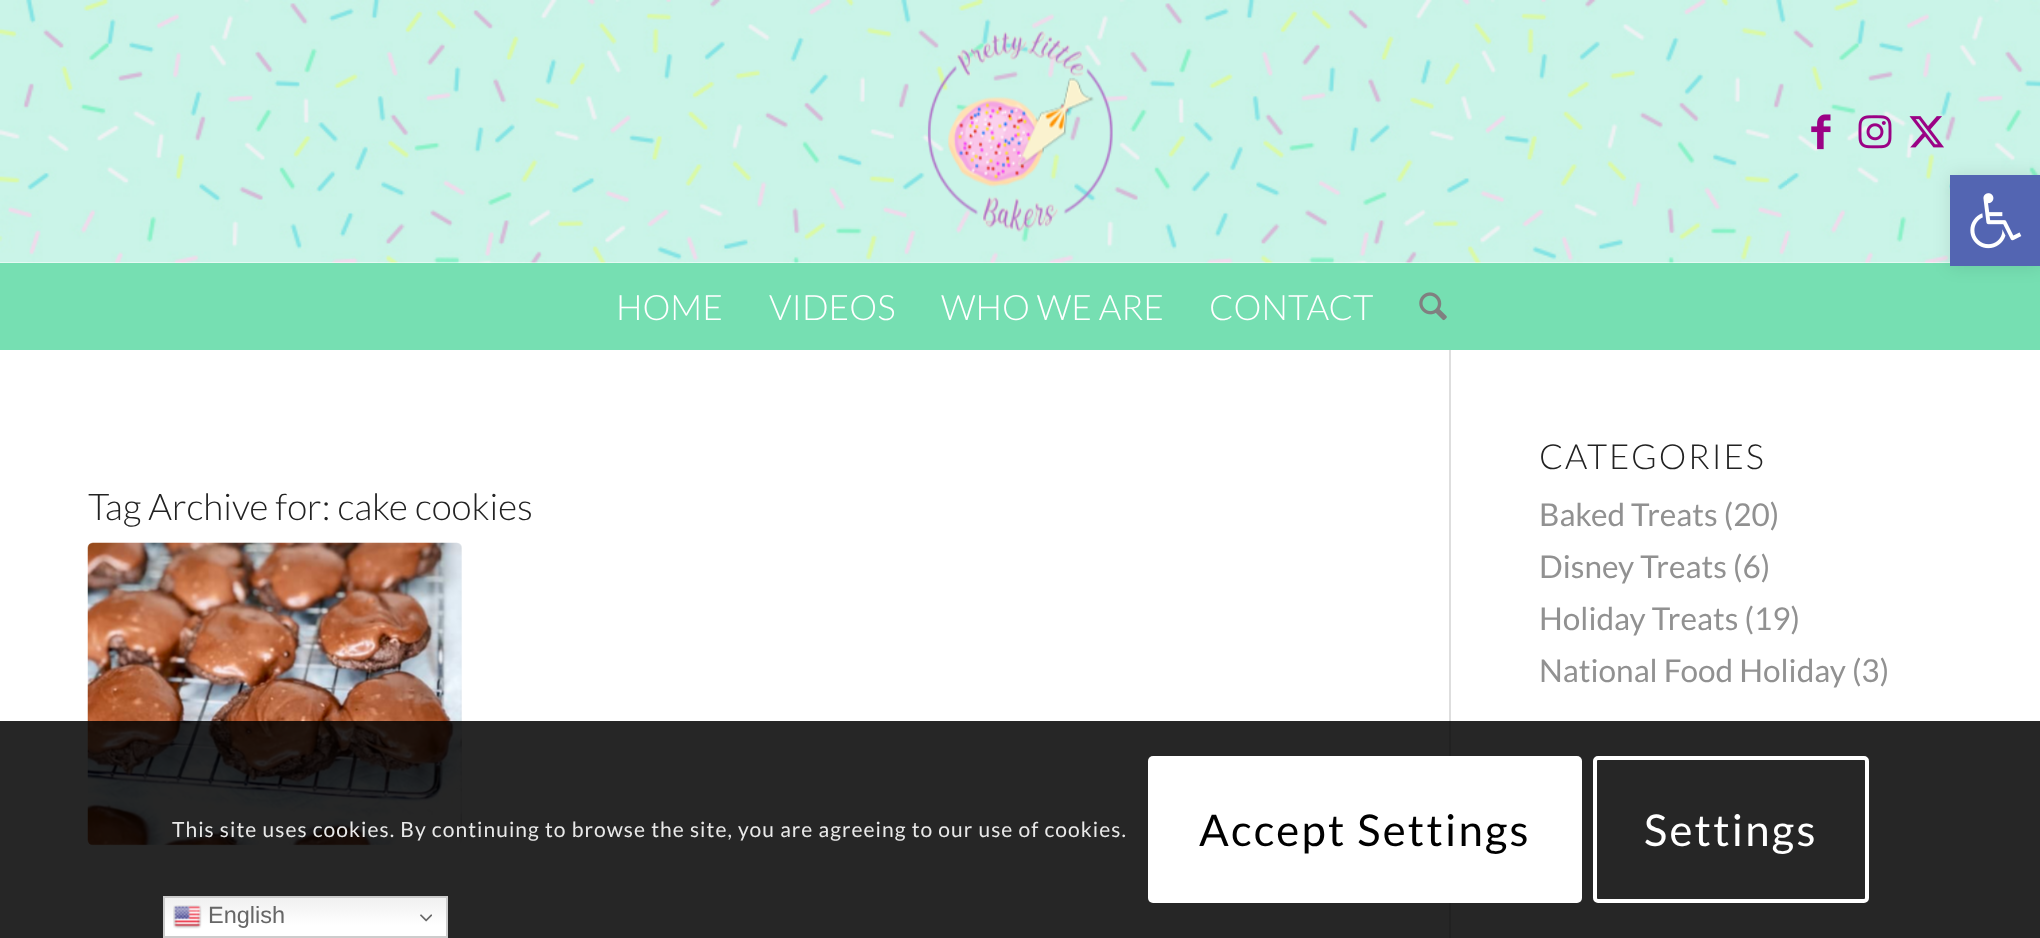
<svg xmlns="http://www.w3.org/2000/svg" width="2040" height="938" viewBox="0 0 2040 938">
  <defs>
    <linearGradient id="g1" gradientUnits="userSpaceOnUse" x1="305" y1="896" x2="305" y2="938"><stop offset="0" stop-color="rgb(239,239,239)"/><stop offset="0.7" stop-color="rgb(255,255,255)"/></linearGradient>
  </defs>
  <rect width="100%" height="100%" fill="rgb(255,255,255)"/>
  <image x="0" y="0" width="2040" height="263" href="pic2.png"/>
  <image x="1909" y="116" width="35" height="32" href="pic6.png"/>
  <rect x="0" y="263" width="2040" height="87" fill="rgb(118,223,178)"/>
  <rect x="1950" y="175" width="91" height="91" fill="rgba(0,0,0,0.1)" filter="blur(9px)"/>
  <rect x="1950" y="175" width="90" height="91" fill="rgb(83,101,178)"/>
  <image x="1970" y="193" width="52" height="56" href="pic1.png"/>
  <image x="927" y="31" width="186" height="201" href="pic3.png"/>
  <image x="1811" y="114" width="20" height="36" href="pic4.png"/>
  <image x="1858" y="115" width="34" height="34" href="pic5.png"/>
  <g font-family="Lato" font-size="35" font-weight="300" fill="rgb(255,255,255)">
    <text x="616" y="320">HOME</text>
    <text x="769" y="320">VIDEOS</text>
    <text x="941" y="320">WHO WE ARE</text>
    <text x="1209" y="320">CONTACT</text>
  </g>
  <image x="1419" y="292" width="28" height="29" href="pic7.png"/>
  <rect x="1449" y="350" width="2" height="588" fill="rgb(222,222,222)"/>
  <text x="88" y="520" font-family="Lato" font-size="36.75" font-weight="300" fill="rgb(34,34,34)">Tag Archive for: cake cookies</text>
  <rect x="88" y="543" width="374" height="302" rx="5" fill="rgb(248,248,248)"/>
  <image x="87" y="542" width="375" height="304" href="pic8.png"/>
  <text x="1539" y="469" font-family="Lato" font-size="34.5" font-weight="300" letter-spacing="1.75" fill="rgb(34,34,34)">CATEGORIES</text>
  <g font-family="Lato" font-size="31.5" fill="rgb(145,145,145)">
    <text>
      <tspan x="1539" y="526">Baked Treats (20)</tspan>
      <tspan x="1539" y="578">Disney Treats (6)</tspan>
      <tspan x="1539" y="630">Holiday Treats (19)</tspan>
      <tspan x="1539" y="682">National Food Holiday (3)</tspan>
    </text>
  </g>
  <rect x="0" y="721" width="2040" height="217" fill="rgba(0,0,0,0.85)"/>
  <text x="172" y="837" font-family="Lato" font-size="21" letter-spacing="1.05" fill="rgb(233,233,233)">This site uses cookies. By continuing to browse the site, you are agreeing to our use of cookies.</text>
  <rect x="1148" y="756" width="434" height="147" rx="5" fill="rgb(255,255,255)"/>
  <text x="1199" y="846" font-family="Lato" font-size="43.75" letter-spacing="2.25" fill="rgb(0,0,0)">Accept Settings</text>
  <rect x="1595" y="758" width="272" height="143" rx="3" fill="none" stroke="rgb(255,255,255)" stroke-width="4"/>
  <text x="1644" y="846" font-family="Lato" font-size="43.75" letter-spacing="2.25" fill="rgb(255,255,255)">Settings</text>
  <rect x="165" y="898" width="281" height="38" fill="url(#g1)"/>
  <rect x="164" y="897" width="283" height="40" fill="none" stroke="rgb(204,204,204)" stroke-width="2"/>
  <image x="173" y="905" width="29" height="24" href="pic9.png"/>
  <text x="208" y="923" font-family="Liberation Sans" font-size="23.5" fill="rgb(102,102,102)">English</text>
  <image x="420" y="914" width="12" height="8" href="pic10.png"/>
</svg>
